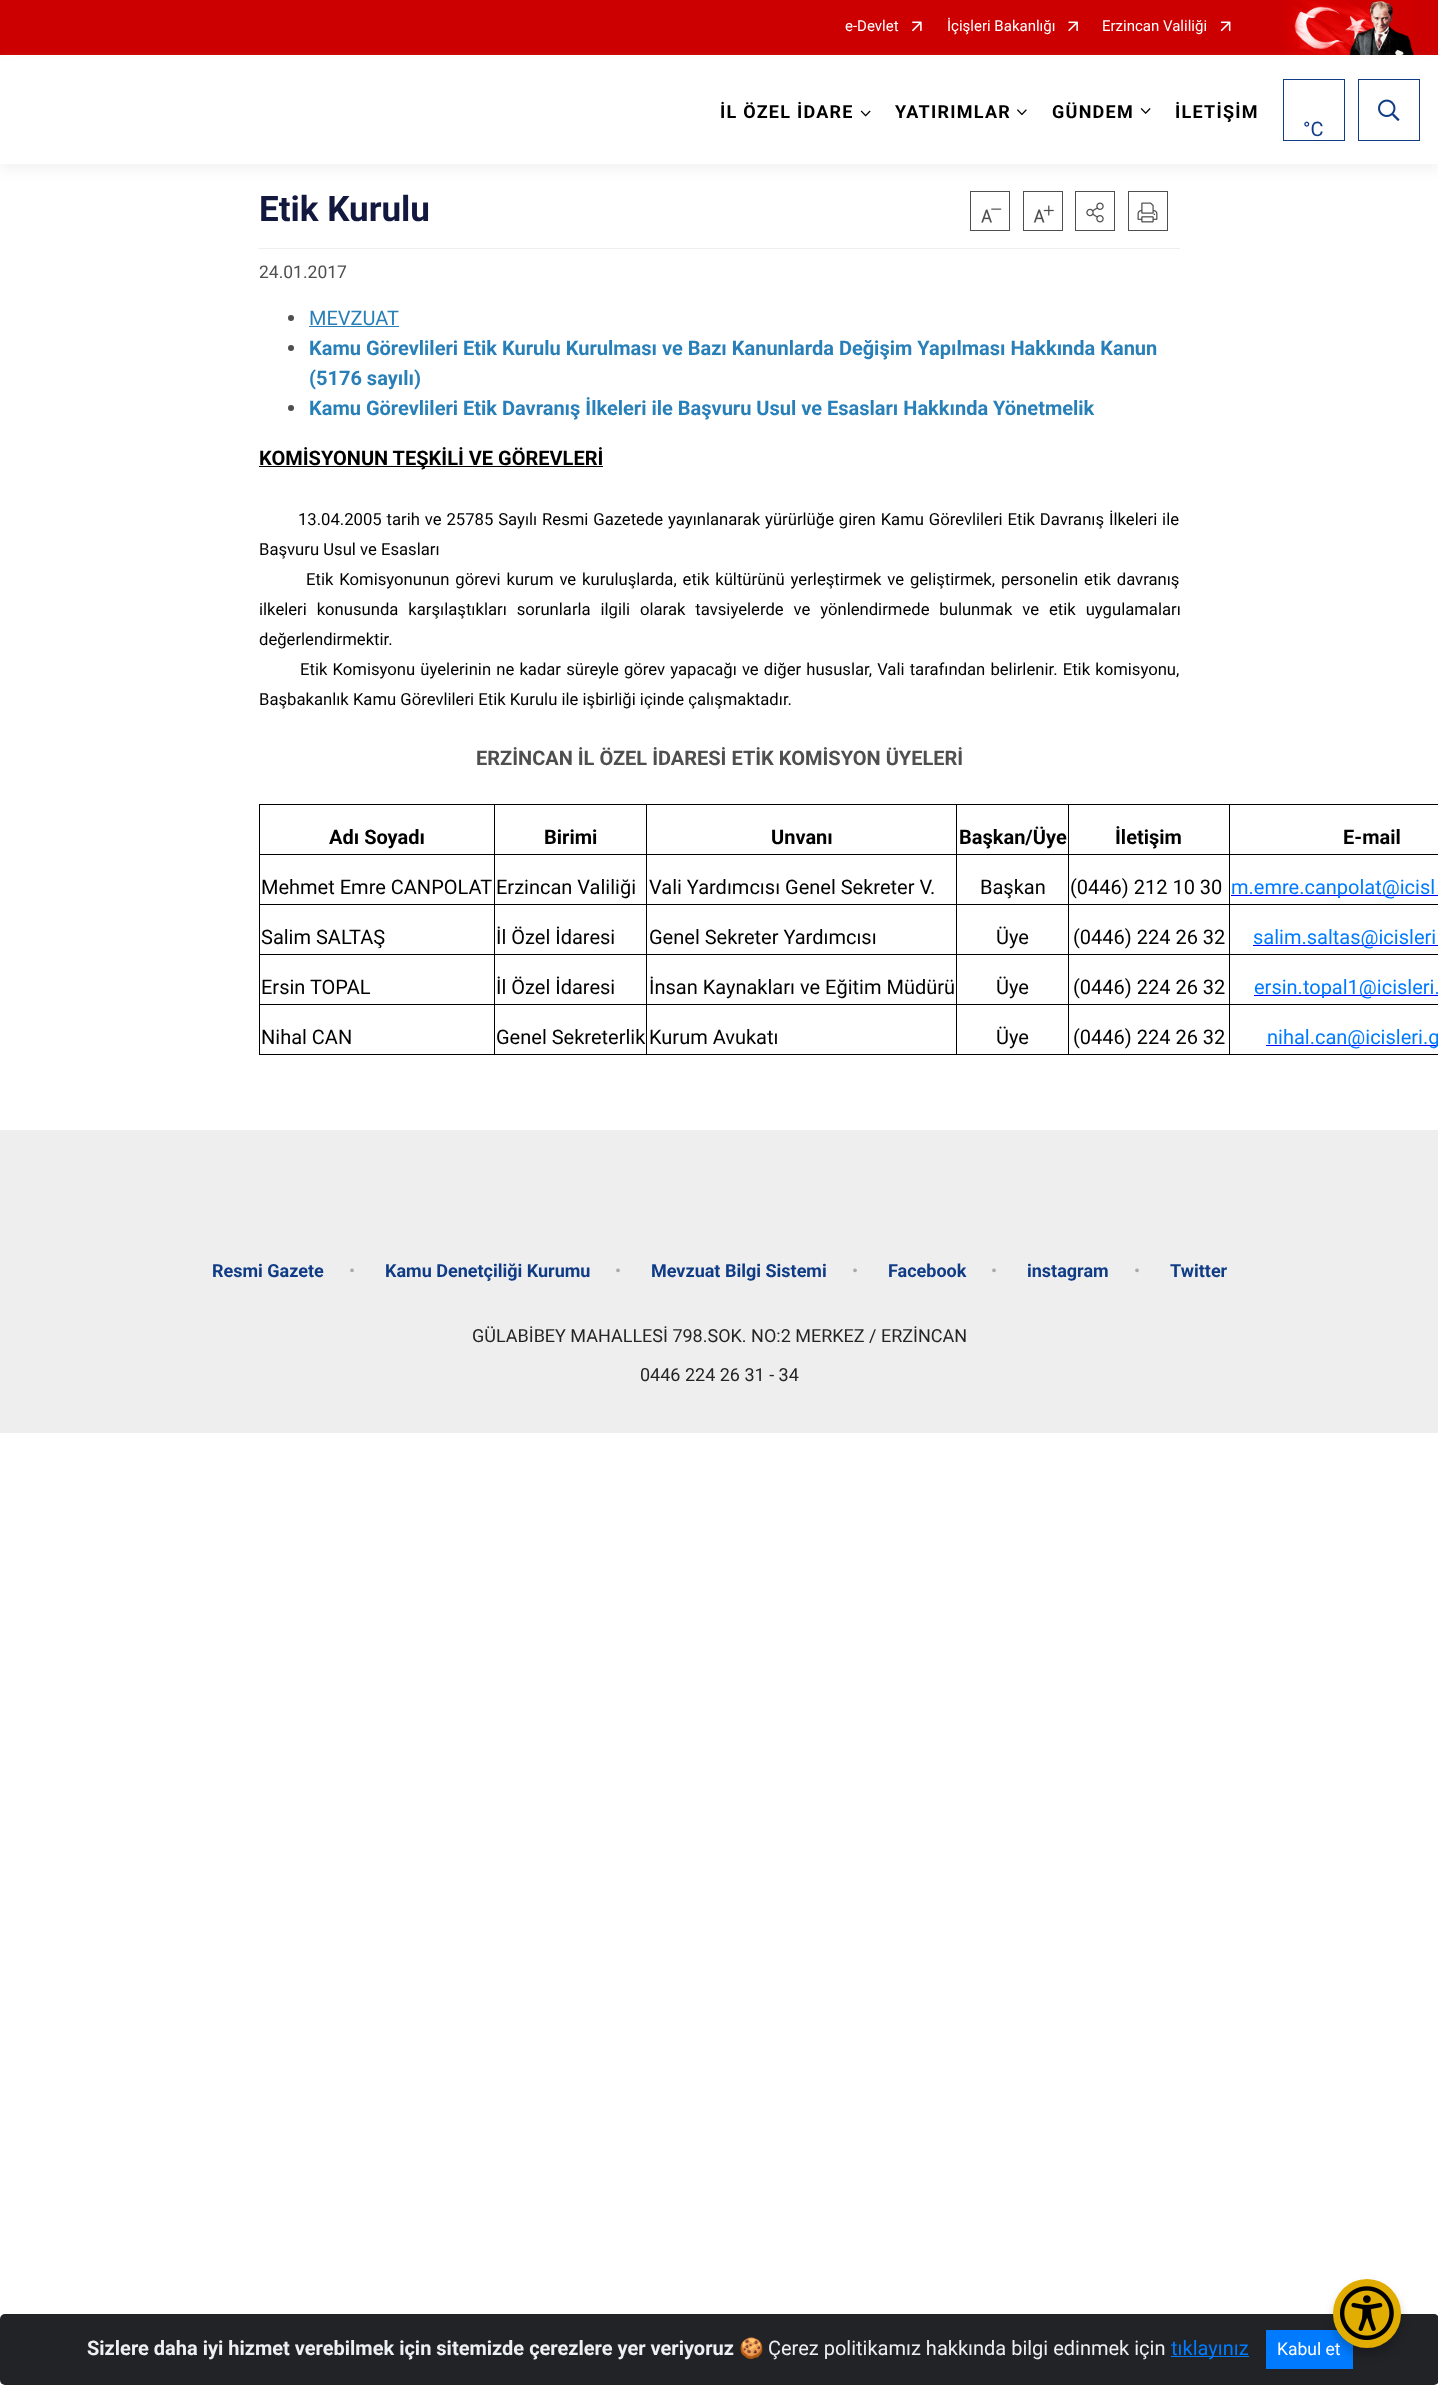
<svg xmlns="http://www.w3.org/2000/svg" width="1438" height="2385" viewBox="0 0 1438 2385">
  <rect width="100%" height="100%" fill="rgb(255,255,255)"/>
  <rect x="0" y="0" width="1438" height="55" fill="rgb(204,0,0)"/>
  <text x="845" y="31" font-family="Roboto" font-size="15" fill="rgb(255,255,255)">e-Devlet</text>
  <image x="912" y="21" width="10" height="11" href="pic1.png"/>
  <text x="947" y="31" font-family="Roboto" font-size="15" fill="rgb(255,255,255)">İçişleri Bakanlığı</text>
  <image x="1068" y="21" width="10" height="11" href="pic2.png"/>
  <text x="1102" y="31" font-family="Roboto" font-size="15" fill="rgb(255,255,255)">Erzincan Valiliği</text>
  <image x="1220" y="21" width="11" height="11" href="pic3.png"/>
  <image x="1283" y="0" width="131" height="55" href="pic4.png"/>
  <rect x="0" y="63" width="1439" height="108" fill="rgba(238,238,238,0.62)" filter="blur(6px)"/>
  <rect x="0" y="59" width="1438" height="105" fill="rgb(255,255,255)"/>
  <text x="720" y="118" font-family="Roboto" font-size="18" font-weight="bold" letter-spacing="1.25" fill="rgb(0,0,0)">İL ÖZEL İDARE</text>
  <image x="860" y="110" width="11" height="7" href="pic5.png"/>
  <text x="895" y="118" font-family="Roboto" font-size="18" font-weight="bold" letter-spacing="1.25" fill="rgb(0,0,0)">YATIRIMLAR</text>
  <image x="1017" y="109" width="10" height="7" href="pic6.png"/>
  <text x="1052" y="118" font-family="Roboto" font-size="18" font-weight="bold" letter-spacing="1.25" fill="rgb(0,0,0)">GÜNDEM</text>
  <image x="1140" y="108" width="11" height="6" href="pic7.png"/>
  <text x="1175" y="118" font-family="Roboto" font-size="18" font-weight="bold" letter-spacing="1.25" fill="rgb(0,0,0)">İLETİŞİM</text>
  <rect x="1283.5" y="79.5" width="61" height="61" fill="none" stroke="rgb(16,60,134)"/>
  <text x="1303" y="136" font-family="Roboto" font-size="20" fill="rgb(16,60,134)">°C</text>
  <rect x="1358.5" y="79.5" width="61" height="61" fill="none" stroke="rgb(16,60,134)"/>
  <image x="1378" y="99" width="22" height="22" href="pic8.png"/>
  <rect x="259" y="248" width="921" height="1" fill="rgb(238,238,238)"/>
  <text x="259" y="221" font-family="Roboto" font-size="35" font-weight="bold" fill="rgb(19,24,62)">Etik Kurulu</text>
  <rect x="970.5" y="191.5" width="39" height="39" fill="none" stroke="rgb(79,79,79)"/>
  <image x="981" y="208" width="21" height="15" href="pic9.png"/>
  <rect x="1023.5" y="191.5" width="39" height="39" fill="none" stroke="rgb(79,79,79)"/>
  <image x="1033" y="205" width="21" height="18" href="pic10.png"/>
  <rect x="1075.5" y="191.5" width="39" height="39" fill="none" stroke="rgb(79,79,79)"/>
  <image x="1086" y="202" width="18" height="21" href="pic11.png"/>
  <rect x="1128.5" y="191.5" width="39" height="39" fill="none" stroke="rgb(79,79,79)"/>
  <image x="1137" y="202" width="21" height="21" href="pic12.png"/>
  <text x="259" y="278" font-family="Roboto" font-size="17.5" fill="rgb(79,79,79)">24.01.2017</text>
  <circle cx="291" cy="318" r="3" fill="rgb(79,79,79)"/>
  <text x="309" y="325" font-family="Roboto" font-size="20" fill="rgb(41,128,185)">MEVZUAT</text>
  <rect x="309" y="326" width="90" height="1" fill="rgb(41,128,185)"/>
  <circle cx="291" cy="348" r="3" fill="rgb(79,79,79)"/>
  <g font-family="Roboto" font-size="20" font-weight="bold" fill="rgb(41,128,185)">
    <text>
      <tspan x="309" y="355">Kamu Görevlileri Etik Kurulu Kurulması ve Bazı Kanunlarda Değişim Yapılması Hakkında Kanun</tspan>
      <tspan x="309" y="385">(5176 sayılı)</tspan>
    </text>
  </g>
  <circle cx="291" cy="408" r="3" fill="rgb(79,79,79)"/>
  <text x="309" y="415" font-family="Roboto" font-size="20" font-weight="bold" fill="rgb(41,128,185)">Kamu Görevlileri Etik Davranış İlkeleri ile Başvuru Usul ve Esasları Hakkında Yönetmelik</text>
  <rect x="259" y="466" width="344" height="1" fill="rgb(0,0,0)"/>
  <text x="259" y="465" font-family="Roboto" font-size="20" font-weight="bold" fill="rgb(0,0,0)">KOMİSYONUN TEŞKİLİ VE GÖREVLERİ</text>
  <g font-family="Roboto" font-size="16.67" fill="rgb(0,0,0)">
    <text x="298" y="525" word-spacing="0.75">13.04.2005 tarih ve 25785 Sayılı Resmi Gazetede yayınlanarak yürürlüğe giren Kamu Görevlileri Etik Davranış İlkeleri ile</text>
    <text x="259" y="555">Başvuru Usul ve Esasları</text>
    <text x="306" y="585" word-spacing="1.75">Etik Komisyonunun görevi kurum ve kuruluşlarda, etik kültürünü yerleştirmek ve geliştirmek, personelin etik davranış</text>
    <text>
      <tspan x="259" y="615" word-spacing="5.75">ilkeleri konusunda karşılaştıkları sorunlarla ilgili olarak tavsiyelerde ve yönlendirmede bulunmak ve etik uygulamaları</tspan>
      <tspan x="259" y="645">değerlendirmektir.</tspan>
    </text>
    <text x="300" y="675" word-spacing="1">Etik Komisyonu üyelerinin ne kadar süreyle görev yapacağı ve diğer hususlar, Vali tarafından belirlenir. Etik komisyonu,</text>
    <text x="259" y="705">Başbakanlık Kamu Görevlileri Etik Kurulu ile işbirliği içinde çalışmaktadır.</text>
  </g>
  <text x="476" y="765" font-family="Roboto" font-size="20" font-weight="bold" fill="rgb(79,79,79)">ERZİNCAN İL ÖZEL İDARESİ ETİK KOMİSYON ÜYELERİ</text>
  <rect x="259" y="804" width="1179" height="1" fill="rgb(0,0,0)"/>
  <rect x="1229" y="1054" width="209" height="1" fill="rgb(0,0,0)"/>
  <rect x="1229" y="1004" width="1" height="51" fill="rgb(0,0,0)"/>
  <rect x="1229" y="1004" width="209" height="1" fill="rgb(0,0,0)"/>
  <rect x="1229" y="954" width="1" height="51" fill="rgb(0,0,0)"/>
  <rect x="1229" y="954" width="209" height="1" fill="rgb(0,0,0)"/>
  <rect x="1229" y="904" width="1" height="51" fill="rgb(0,0,0)"/>
  <rect x="1229" y="904" width="209" height="1" fill="rgb(0,0,0)"/>
  <rect x="1229" y="854" width="1" height="51" fill="rgb(0,0,0)"/>
  <rect x="1229" y="854" width="209" height="1" fill="rgb(0,0,0)"/>
  <rect x="1229" y="804" width="1" height="51" fill="rgb(0,0,0)"/>
  <rect x="1068" y="1054" width="162" height="1" fill="rgb(0,0,0)"/>
  <rect x="1068" y="1004" width="1" height="51" fill="rgb(0,0,0)"/>
  <rect x="1068" y="1004" width="162" height="1" fill="rgb(0,0,0)"/>
  <rect x="1068" y="954" width="1" height="51" fill="rgb(0,0,0)"/>
  <rect x="1068" y="954" width="162" height="1" fill="rgb(0,0,0)"/>
  <rect x="1068" y="904" width="1" height="51" fill="rgb(0,0,0)"/>
  <rect x="1068" y="904" width="162" height="1" fill="rgb(0,0,0)"/>
  <rect x="1068" y="854" width="1" height="51" fill="rgb(0,0,0)"/>
  <rect x="1068" y="854" width="162" height="1" fill="rgb(0,0,0)"/>
  <rect x="1068" y="804" width="1" height="51" fill="rgb(0,0,0)"/>
  <rect x="956" y="1054" width="113" height="1" fill="rgb(0,0,0)"/>
  <rect x="956" y="1004" width="1" height="51" fill="rgb(0,0,0)"/>
  <rect x="956" y="1004" width="113" height="1" fill="rgb(0,0,0)"/>
  <rect x="956" y="954" width="1" height="51" fill="rgb(0,0,0)"/>
  <rect x="956" y="954" width="113" height="1" fill="rgb(0,0,0)"/>
  <rect x="956" y="904" width="1" height="51" fill="rgb(0,0,0)"/>
  <rect x="956" y="904" width="113" height="1" fill="rgb(0,0,0)"/>
  <rect x="956" y="854" width="1" height="51" fill="rgb(0,0,0)"/>
  <rect x="956" y="854" width="113" height="1" fill="rgb(0,0,0)"/>
  <rect x="956" y="804" width="1" height="51" fill="rgb(0,0,0)"/>
  <rect x="646" y="1054" width="312" height="1" fill="rgb(0,0,0)"/>
  <rect x="646" y="1004" width="1" height="51" fill="rgb(0,0,0)"/>
  <rect x="646" y="1004" width="312" height="1" fill="rgb(0,0,0)"/>
  <rect x="646" y="954" width="1" height="51" fill="rgb(0,0,0)"/>
  <rect x="646" y="954" width="312" height="1" fill="rgb(0,0,0)"/>
  <rect x="646" y="904" width="1" height="51" fill="rgb(0,0,0)"/>
  <rect x="646" y="904" width="312" height="1" fill="rgb(0,0,0)"/>
  <rect x="646" y="854" width="1" height="51" fill="rgb(0,0,0)"/>
  <rect x="646" y="854" width="312" height="1" fill="rgb(0,0,0)"/>
  <rect x="646" y="804" width="1" height="51" fill="rgb(0,0,0)"/>
  <rect x="494" y="1054" width="154" height="1" fill="rgb(0,0,0)"/>
  <rect x="494" y="1004" width="1" height="51" fill="rgb(0,0,0)"/>
  <rect x="494" y="1004" width="154" height="1" fill="rgb(0,0,0)"/>
  <rect x="494" y="954" width="1" height="51" fill="rgb(0,0,0)"/>
  <rect x="494" y="954" width="154" height="1" fill="rgb(0,0,0)"/>
  <rect x="494" y="904" width="1" height="51" fill="rgb(0,0,0)"/>
  <rect x="494" y="904" width="154" height="1" fill="rgb(0,0,0)"/>
  <rect x="494" y="854" width="1" height="51" fill="rgb(0,0,0)"/>
  <rect x="494" y="854" width="154" height="1" fill="rgb(0,0,0)"/>
  <rect x="494" y="804" width="1" height="51" fill="rgb(0,0,0)"/>
  <rect x="259" y="1054" width="236" height="1" fill="rgb(0,0,0)"/>
  <rect x="259" y="1004" width="1" height="51" fill="rgb(0,0,0)"/>
  <rect x="259" y="1004" width="236" height="1" fill="rgb(0,0,0)"/>
  <rect x="259" y="954" width="1" height="51" fill="rgb(0,0,0)"/>
  <rect x="259" y="954" width="236" height="1" fill="rgb(0,0,0)"/>
  <rect x="259" y="904" width="1" height="51" fill="rgb(0,0,0)"/>
  <rect x="259" y="904" width="236" height="1" fill="rgb(0,0,0)"/>
  <rect x="259" y="854" width="1" height="51" fill="rgb(0,0,0)"/>
  <rect x="259" y="854" width="236" height="1" fill="rgb(0,0,0)"/>
  <rect x="259" y="804" width="1" height="51" fill="rgb(0,0,0)"/>
  <g font-family="Roboto" font-size="20" font-weight="bold" fill="rgb(0,0,0)">
    <text x="329" y="844">Adı Soyadı</text>
    <text x="544" y="844">Birimi</text>
    <text x="771" y="844">Unvanı</text>
    <text x="959" y="844">Başkan/Üye</text>
    <text x="1115" y="844">İletişim</text>
    <text x="1343" y="844">E-mail</text>
  </g>
  <g font-family="Roboto" font-size="20" fill="rgb(0,0,0)">
    <text x="261" y="894">Mehmet Emre CANPOLAT</text>
    <text x="496" y="894">Erzincan Valiliği</text>
    <text x="649" y="894">Vali Yardımcısı Genel Sekreter V.</text>
    <text x="980" y="894">Başkan</text>
    <text x="1070" y="894">(0446) 212 10 30</text>
  </g>
  <rect x="1231" y="895" width="207" height="1" fill="rgb(0,0,255)"/>
  <text x="1231" y="894" font-family="Roboto" font-size="20" fill="rgb(0,123,255)">m.emre.canpolat@icisl</text>
  <g font-family="Roboto" font-size="20" fill="rgb(0,0,0)">
    <text x="261" y="944">Salim SALTAŞ</text>
    <text x="496" y="944">İl Özel İdaresi</text>
    <text x="649" y="944">Genel Sekreter Yardımcısı</text>
    <text x="996" y="944">Üye</text>
    <text x="1073" y="944">(0446) 224 26 32</text>
  </g>
  <rect x="1253" y="945" width="185" height="1" fill="rgb(0,0,255)"/>
  <text x="1253" y="944" font-family="Roboto" font-size="20" fill="rgb(0,123,255)">salim.saltas@icisleri</text>
  <g font-family="Roboto" font-size="20" fill="rgb(0,0,0)">
    <text x="261" y="994">Ersin TOPAL</text>
    <text x="496" y="994">İl Özel İdaresi</text>
    <text x="649" y="994">İnsan Kaynakları ve Eğitim Müdürü</text>
    <text x="996" y="994">Üye</text>
    <text x="1073" y="994">(0446) 224 26 32</text>
  </g>
  <rect x="1254" y="995" width="184" height="1" fill="rgb(0,0,255)"/>
  <text x="1254" y="994" font-family="Roboto" font-size="20" fill="rgb(0,123,255)">ersin.topal1@icisleri.</text>
  <g font-family="Roboto" font-size="20" fill="rgb(0,0,0)">
    <text x="261" y="1044">Nihal CAN</text>
    <text x="496" y="1044">Genel Sekreterlik</text>
    <text x="649" y="1044">Kurum Avukatı</text>
    <text x="996" y="1044">Üye</text>
    <text x="1073" y="1044">(0446) 224 26 32</text>
  </g>
  <rect x="1266" y="1045" width="172" height="1" fill="rgb(0,0,255)"/>
  <text x="1267" y="1044" font-family="Roboto" font-size="20" fill="rgb(0,123,255)">nihal.can@icisleri.g</text>
  <rect x="0" y="1130" width="1438" height="303" fill="rgb(238,238,238)"/>
  <text x="212" y="1277" font-family="Roboto" font-size="18" font-weight="bold" fill="rgb(16,60,134)">Resmi Gazete</text>
  <text x="349" y="1277" font-family="Roboto" font-size="18" fill="rgb(170,170,170)">•</text>
  <text x="385" y="1277" font-family="Roboto" font-size="18" font-weight="bold" fill="rgb(16,60,134)">Kamu Denetçiliği Kurumu</text>
  <text x="615" y="1277" font-family="Roboto" font-size="18" fill="rgb(170,170,170)">•</text>
  <text x="651" y="1277" font-family="Roboto" font-size="18" font-weight="bold" fill="rgb(16,60,134)">Mevzuat Bilgi Sistemi</text>
  <text x="852" y="1277" font-family="Roboto" font-size="18" fill="rgb(170,170,170)">•</text>
  <text x="888" y="1277" font-family="Roboto" font-size="18" font-weight="bold" fill="rgb(16,60,134)">Facebook</text>
  <text x="991" y="1277" font-family="Roboto" font-size="18" fill="rgb(170,170,170)">•</text>
  <text x="1027" y="1277" font-family="Roboto" font-size="18" font-weight="bold" fill="rgb(16,60,134)">instagram</text>
  <text x="1134" y="1277" font-family="Roboto" font-size="18" fill="rgb(170,170,170)">•</text>
  <text x="1170" y="1277" font-family="Roboto" font-size="18" font-weight="bold" fill="rgb(16,60,134)">Twitter</text>
  <g font-family="Roboto" font-size="18" fill="rgb(37,37,37)">
    <text x="472" y="1342">GÜLABİBEY MAHALLESİ 798.SOK. NO:2 MERKEZ / ERZİNCAN</text>
    <text x="640" y="1381">0446 224 26 31 - 34</text>
  </g>
  <rect x="0" y="2314" width="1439" height="71" rx="5" fill="rgb(33,35,39)"/>
  <text x="87" y="2355" font-family="Roboto" font-size="20" font-weight="bold" fill="rgb(236,240,241)">Sizlere daha iyi hizmet verebilmek için sitemizde çerezlere yer veriyoruz</text>
  <text x="739" y="2355" font-family="Noto Color Emoji" font-size="20" fill="rgb(236,240,241)">🍪</text>
  <text x="768" y="2355" font-family="Roboto" font-size="20" fill="rgb(236,240,241)">Çerez politikamız hakkında bilgi edinmek için</text>
  <rect x="1171" y="2356" width="78" height="1" fill="rgb(0,123,255)"/>
  <text x="1171" y="2355" font-family="Roboto" font-size="20" fill="rgb(0,123,255)">tıklayınız</text>
  <rect x="1266" y="2330" width="87" height="39" fill="rgb(0,123,255)"/>
  <text x="1277" y="2355" font-family="Roboto" font-size="17.5" fill="rgb(255,255,255)">Kabul et</text>
  <rect x="1333" y="2286" width="68" height="69" rx="34" fill="rgba(0,0,0,0.2)" filter="blur(5px)"/>
  <rect x="1333" y="2279" width="68" height="69" rx="34" fill="rgb(225,173,1)"/>
  <image x="1340" y="2286" width="54" height="54" href="pic13.png"/>
</svg>
